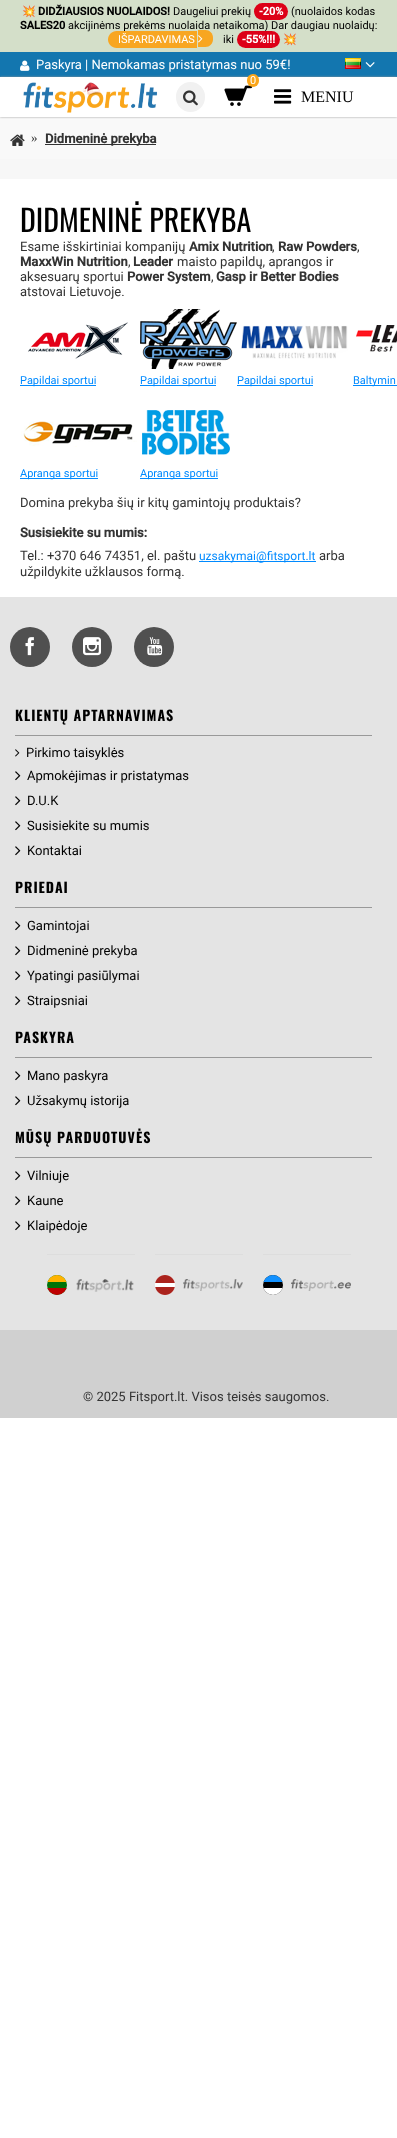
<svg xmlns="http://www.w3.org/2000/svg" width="397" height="2138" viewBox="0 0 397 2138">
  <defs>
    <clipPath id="clip1"><path d="M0 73H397V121H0ZM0 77H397V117H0Z" clip-rule="evenodd"/></clipPath>
    <clipPath id="clip2"><rect x="47" y="1275" width="20" height="20" rx="10"/></clipPath>
    <clipPath id="clip3"><rect x="263" y="1275" width="20" height="20" rx="10"/></clipPath>
  </defs>
  <rect width="100%" height="100%" fill="rgb(255,255,255)"/>
  <rect x="0" y="0" width="397" height="52" fill="rgb(212,223,201)"/>
  <text x="22" y="15" font-family="Noto Color Emoji" font-size="11" fill="rgb(0,0,0)">💥</text>
  <text x="38" y="15" font-family="Roboto" font-size="11" font-weight="bold" fill="rgb(0,0,0)">DIDŽIAUSIOS NUOLAIDOS!</text>
  <text x="173" y="15" font-family="Roboto" font-size="11" fill="rgb(0,0,0)">Daugeliui prekių</text>
  <rect x="254" y="3" width="34" height="17" rx="8.5" fill="rgb(221,0,23)"/>
  <text x="259" y="15" font-family="Roboto" font-size="11" font-weight="bold" fill="rgb(255,255,255)">-20%</text>
  <text x="291" y="15" font-family="Roboto" font-size="11" fill="rgb(0,0,0)">(nuolaidos kodas</text>
  <text x="20" y="29" font-family="Roboto" font-size="11" font-weight="bold" fill="rgb(0,0,0)">SALES20</text>
  <text x="68" y="29" font-family="Roboto" font-size="11" fill="rgb(0,0,0)">akcijinėms prekėms nuolaida netaikoma) Dar daugiau nuolaidų:</text>
  <path d="M116.5 31H197V48H116.5C112 48 108 44 108 39.5C108 35 112 31 116.5 31Z" fill="rgb(248,166,33)"/>
  <path d="M198 30H205.5C209.5 30 213 33.5 213 37.5V39.5C213 43.5 209.5 47 205.5 47H198Z" fill="rgb(248,166,33)"/>
  <text x="118" y="43" font-family="Roboto" font-size="11" fill="rgb(255,255,255)">IŠPARDAVIMAS</text>
  <image x="198" y="35" width="5" height="8" href="pic1.png"/>
  <text x="223" y="43" font-family="Roboto" font-size="11" fill="rgb(0,0,0)">iki</text>
  <rect x="237" y="31" width="43" height="17" rx="8.5" fill="rgb(221,0,23)"/>
  <text x="242" y="43" font-family="Roboto" font-size="11" font-weight="bold" fill="rgb(255,255,255)">-55%!!!</text>
  <text x="283" y="43" font-family="Noto Color Emoji" font-size="11" fill="rgb(0,0,0)">💥</text>
  <rect x="0" y="52" width="397" height="25" fill="rgb(19,118,175)"/>
  <image x="20" y="60" width="10" height="11" href="pic2.png"/>
  <text x="36" y="69" font-family="Roboto" font-size="13" fill="rgb(255,255,255)">Paskyra | Nemokamas pristatymas nuo 59€!</text>
  <image x="345" y="58" width="16" height="11" href="pic3.png"/>
  <image x="365" y="62" width="10" height="6" href="pic4.png"/>
  <rect x="0" y="117" width="397" height="42" fill="rgb(249,249,249)"/>
  <g clip-path="url(#clip1)">
    <rect x="0" y="77" width="397" height="40" fill="rgb(153,153,153)" filter="blur(1px)"/>
  </g>
  <image x="224" y="85" width="29" height="21" href="pic5.png"/>
  <rect x="247" y="74" width="12" height="13" rx="6" fill="rgb(250,166,26)"/>
  <text x="250" y="84" font-family="Roboto" font-size="11" fill="rgb(255,255,255)">0</text>
  <image x="23" y="82" width="135" height="31" href="pic6.png"/>
  <rect x="176" y="82" width="29" height="30" rx="14.5" fill="rgb(241,241,241)"/>
  <image x="183" y="90" width="15" height="16" href="pic7.png"/>
  <image x="274" y="89" width="18" height="15" href="pic8.png"/>
  <text x="301" y="102" font-family="Liberation Serif" font-size="16" fill="rgb(0,0,0)">MENIU</text>
  <rect x="0" y="159" width="397" height="20" fill="rgb(247,247,247)"/>
  <image x="10" y="134" width="15" height="12" href="pic9.png"/>
  <text x="31" y="142" font-family="Liberation Serif" font-size="13" fill="rgb(51,51,51)">»</text>
  <rect x="45" y="144" width="111" height="1" fill="rgb(51,51,51)"/>
  <text x="45" y="143" font-family="Roboto" font-size="13" font-weight="bold" fill="rgb(51,51,51)">Didmeninė prekyba</text>
  <text x="20" y="232" font-family="Oswald" font-size="30" fill="rgb(0,0,0)">DIDMENINĖ PREKYBA</text>
  <text x="20" y="251" font-family="Roboto" font-size="13" fill="rgb(51,51,51)">Esame išskirtiniai kompanijų</text>
  <text x="189" y="251" font-family="Roboto" font-size="13" font-weight="bold" fill="rgb(51,51,51)">Amix Nutrition</text>
  <text x="272" y="251" font-family="Roboto" font-size="13" fill="rgb(51,51,51)">,</text>
  <text x="278" y="251" font-family="Roboto" font-size="13" font-weight="bold" fill="rgb(51,51,51)">Raw Powders</text>
  <text x="357" y="251" font-family="Roboto" font-size="13" fill="rgb(51,51,51)">,</text>
  <text x="20" y="266" font-family="Roboto" font-size="13" font-weight="bold" fill="rgb(51,51,51)">MaxxWin Nutrition</text>
  <text x="128" y="266" font-family="Roboto" font-size="13" fill="rgb(51,51,51)">,</text>
  <text x="133" y="266" font-family="Roboto" font-size="13" font-weight="bold" fill="rgb(51,51,51)">Leader</text>
  <g font-family="Roboto" font-size="13" fill="rgb(51,51,51)">
    <text x="177" y="266">maisto papildų, aprangos ir</text>
    <text x="20" y="281">aksesuarų sportui</text>
  </g>
  <text x="127" y="281" font-family="Roboto" font-size="13" font-weight="bold" fill="rgb(51,51,51)">Power System</text>
  <text x="211" y="281" font-family="Roboto" font-size="13" fill="rgb(51,51,51)">,</text>
  <text x="216" y="281" font-family="Roboto" font-size="13" font-weight="bold" fill="rgb(51,51,51)">Gasp ir Better Bodies</text>
  <text x="20" y="296" font-family="Roboto" font-size="13" fill="rgb(51,51,51)">atstovai Lietuvoje.</text>
  <image x="28" y="322" width="100" height="37" href="pic10.png"/>
  <image x="140" y="309" width="97" height="60" href="pic11.png"/>
  <image x="241" y="325" width="107" height="34" href="pic12.png"/>
  <image x="356" y="325" width="41" height="27" href="pic13.png"/>
  <rect x="20" y="385" width="76" height="1" fill="rgb(0,138,255)"/>
  <text x="20" y="384" font-family="Roboto" font-size="11" fill="rgb(0,138,255)">Papildai sportui</text>
  <rect x="140" y="385" width="76" height="1" fill="rgb(0,138,255)"/>
  <text x="140" y="384" font-family="Roboto" font-size="11" fill="rgb(0,138,255)">Papildai sportui</text>
  <rect x="237" y="385" width="76" height="1" fill="rgb(0,138,255)"/>
  <text x="237" y="384" font-family="Roboto" font-size="11" fill="rgb(0,138,255)">Papildai sportui</text>
  <rect x="353" y="385" width="44" height="1" fill="rgb(0,138,255)"/>
  <text x="353" y="384" font-family="Roboto" font-size="11" fill="rgb(0,138,255)">Baltymin</text>
  <image x="21" y="421" width="116" height="26" href="pic14.png"/>
  <image x="142" y="410" width="88" height="45" href="pic15.png"/>
  <rect x="20" y="478" width="78" height="1" fill="rgb(0,138,255)"/>
  <text x="20" y="477" font-family="Roboto" font-size="11" fill="rgb(0,138,255)">Apranga sportui</text>
  <rect x="140" y="478" width="78" height="1" fill="rgb(0,138,255)"/>
  <text x="140" y="477" font-family="Roboto" font-size="11" fill="rgb(0,138,255)">Apranga sportui</text>
  <text x="20" y="507" font-family="Roboto" font-size="13" fill="rgb(51,51,51)">Domina prekyba šių ir kitų gamintojų produktais?</text>
  <text x="20" y="537" font-family="Roboto" font-size="13" font-weight="bold" fill="rgb(51,51,51)">Susisiekite su mumis:</text>
  <text x="20" y="560" font-family="Roboto" font-size="13" fill="rgb(51,51,51)">Tel.: +370 646 74351, el. paštu</text>
  <rect x="199" y="561" width="117" height="1" fill="rgb(0,138,255)"/>
  <text x="199" y="560" font-family="Roboto" font-size="12" fill="rgb(0,138,255)">uzsakymai@fitsport.lt</text>
  <g font-family="Roboto" font-size="13" fill="rgb(51,51,51)">
    <text x="319" y="560">arba</text>
    <text x="20" y="576">užpildykite užklausos formą.</text>
  </g>
  <rect x="0" y="597" width="397" height="733" fill="rgb(228,228,228)"/>
  <circle cx="30" cy="647" r="20" fill="rgb(80,80,80)"/>
  <image x="25" y="637" width="9" height="19" href="pic16.png"/>
  <circle cx="92" cy="647" r="20" fill="rgb(80,80,80)"/>
  <image x="83" y="637" width="18" height="19" href="pic17.png"/>
  <circle cx="154" cy="647" r="20" fill="rgb(80,80,80)"/>
  <image x="147" y="637" width="16" height="19" href="pic18.png"/>
  <rect x="15" y="735" width="357" height="1" fill="rgb(153,153,153)"/>
  <text x="15" y="721" font-family="Oswald" font-size="14" font-weight="bold" letter-spacing="1" fill="rgb(0,0,0)">KLIENTŲ APTARNAVIMAS</text>
  <image x="15" y="749" width="5" height="8" href="pic19.png"/>
  <text x="26" y="757" font-family="Roboto" font-size="13" fill="rgb(0,0,0)">Pirkimo taisyklės</text>
  <image x="15" y="771" width="6" height="10" href="pic20.png"/>
  <text x="27" y="780" font-family="Roboto" font-size="13" fill="rgb(0,0,0)">Apmokėjimas ir pristatymas</text>
  <image x="15" y="796" width="6" height="10" href="pic20.png"/>
  <text x="27" y="805" font-family="Roboto" font-size="13" fill="rgb(0,0,0)">D.U.K</text>
  <image x="15" y="821" width="6" height="10" href="pic20.png"/>
  <text x="27" y="830" font-family="Roboto" font-size="13" fill="rgb(0,0,0)">Susisiekite su mumis</text>
  <image x="15" y="846" width="6" height="10" href="pic20.png"/>
  <text x="27" y="855" font-family="Roboto" font-size="13" fill="rgb(0,0,0)">Kontaktai</text>
  <rect x="15" y="907" width="357" height="1" fill="rgb(153,153,153)"/>
  <text x="15" y="893" font-family="Oswald" font-size="14" font-weight="bold" letter-spacing="1" fill="rgb(0,0,0)">PRIEDAI</text>
  <image x="15" y="921" width="6" height="10" href="pic20.png"/>
  <text x="27" y="930" font-family="Roboto" font-size="13" fill="rgb(0,0,0)">Gamintojai</text>
  <image x="15" y="946" width="6" height="10" href="pic20.png"/>
  <text x="27" y="955" font-family="Roboto" font-size="13" fill="rgb(0,0,0)">Didmeninė prekyba</text>
  <image x="15" y="971" width="6" height="10" href="pic20.png"/>
  <text x="27" y="980" font-family="Roboto" font-size="13" fill="rgb(0,0,0)">Ypatingi pasiūlymai</text>
  <image x="15" y="996" width="6" height="10" href="pic20.png"/>
  <text x="27" y="1005" font-family="Roboto" font-size="13" fill="rgb(0,0,0)">Straipsniai</text>
  <rect x="15" y="1057" width="357" height="1" fill="rgb(153,153,153)"/>
  <text x="15" y="1043" font-family="Oswald" font-size="14" font-weight="bold" letter-spacing="1" fill="rgb(0,0,0)">PASKYRA</text>
  <image x="15" y="1071" width="6" height="10" href="pic20.png"/>
  <text x="27" y="1080" font-family="Roboto" font-size="13" fill="rgb(0,0,0)">Mano paskyra</text>
  <image x="15" y="1096" width="6" height="10" href="pic20.png"/>
  <text x="27" y="1105" font-family="Roboto" font-size="13" fill="rgb(0,0,0)">Užsakymų istorija</text>
  <rect x="15" y="1157" width="357" height="1" fill="rgb(153,153,153)"/>
  <text x="15" y="1143" font-family="Oswald" font-size="14" font-weight="bold" letter-spacing="1" fill="rgb(0,0,0)">MŪSŲ PARDUOTUVĖS</text>
  <image x="15" y="1171" width="6" height="10" href="pic20.png"/>
  <text x="27" y="1180" font-family="Roboto" font-size="13" fill="rgb(0,0,0)">Vilniuje</text>
  <image x="15" y="1196" width="6" height="10" href="pic20.png"/>
  <text x="27" y="1205" font-family="Roboto" font-size="13" fill="rgb(0,0,0)">Kaune</text>
  <image x="15" y="1221" width="6" height="10" href="pic20.png"/>
  <text x="27" y="1230" font-family="Roboto" font-size="13" fill="rgb(0,0,0)">Klaipėdoje</text>
  <rect x="47" y="1254" width="88" height="1" fill="rgb(221,221,221)"/>
  <circle cx="57" cy="1285" r="10" fill="rgb(0,115,8)"/>
  <g clip-path="url(#clip2)">
    <rect x="47" y="1288" width="20" height="7" fill="rgb(191,0,0)"/>
    <rect x="47" y="1275" width="20" height="7" fill="rgb(255,179,0)"/>
  </g>
  <image x="76" y="1279" width="58" height="13" href="pic21.png"/>
  <rect x="155" y="1254" width="88" height="1" fill="rgb(221,221,221)"/>
  <image x="155" y="1275" width="20" height="20" href="pic22.png"/>
  <image x="183" y="1279" width="60" height="12" href="pic23.png"/>
  <rect x="263" y="1254" width="88" height="1" fill="rgb(221,221,221)"/>
  <circle cx="273" cy="1285" r="10" fill="rgb(0,0,0)"/>
  <g clip-path="url(#clip3)">
    <rect x="263" y="1288" width="20" height="7" fill="rgb(255,255,255)"/>
    <rect x="263" y="1275" width="20" height="7" fill="rgb(18,145,255)"/>
  </g>
  <image x="291" y="1279" width="60" height="12" href="pic24.png"/>
  <rect x="0" y="1330" width="397" height="88" fill="rgb(208,208,208)"/>
  <text x="83" y="1401" font-family="Roboto" font-size="13" fill="rgb(51,51,51)">© 2025 Fitsport.lt. Visos teisės saugomos.</text>
</svg>
